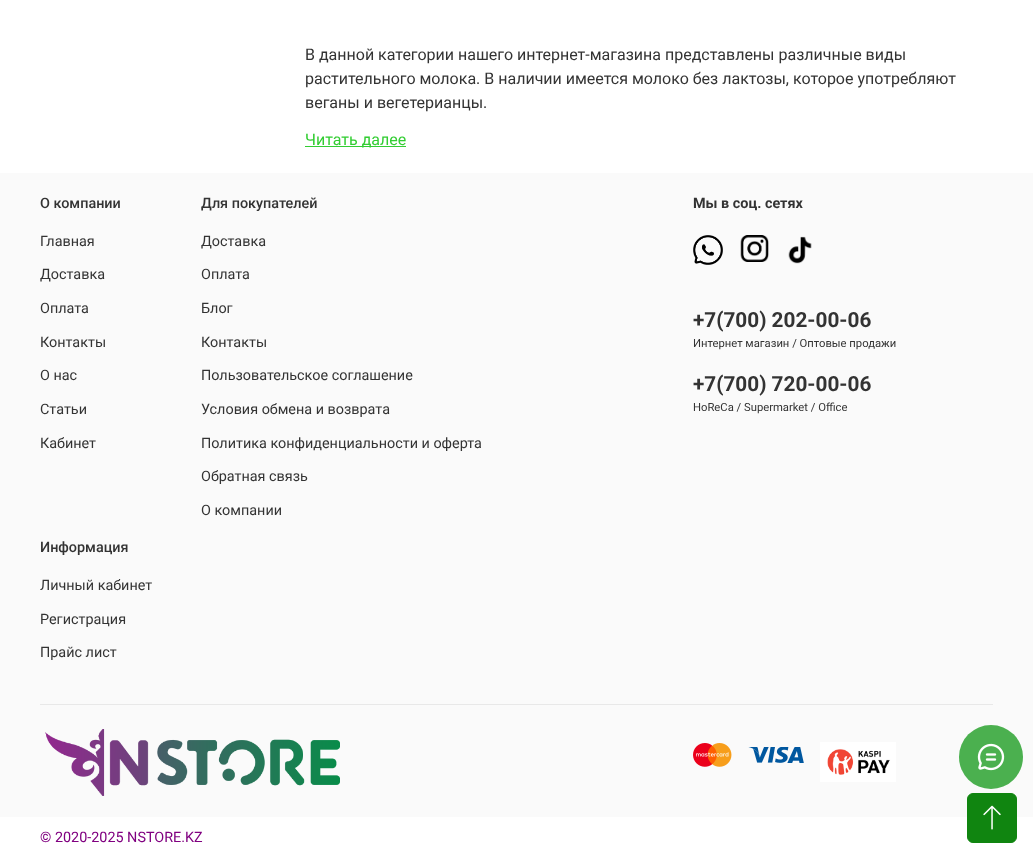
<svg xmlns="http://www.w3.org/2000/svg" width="1033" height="859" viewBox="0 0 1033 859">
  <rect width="100%" height="100%" fill="rgb(255,255,255)"/>
  <g font-family="Roboto" font-size="16" fill="rgb(51,51,51)">
    <text>
      <tspan x="305" y="60">В данной категории нашего интернет-магазина представлены различные виды</tspan>
      <tspan x="305" y="84">растительного молока. В наличии имеется молоко без лактозы, которое употребляют</tspan>
      <tspan x="305" y="108">веганы и вегетерианцы.</tspan>
    </text>
  </g>
  <rect x="305" y="146" width="101" height="1" fill="rgb(50,205,50)"/>
  <text x="305" y="145" font-family="Roboto" font-size="16" fill="rgb(50,205,50)">Читать далее</text>
  <rect x="0" y="173" width="1033" height="644" fill="rgb(250,250,250)"/>
  <text x="40" y="208" font-family="Roboto" font-size="14.4" font-weight="500" fill="rgb(51,51,51)">О компании</text>
  <g font-family="Roboto" font-size="14.4" fill="rgb(51,51,51)">
    <text x="40" y="246">Главная</text>
    <text x="40" y="279">Доставка</text>
    <text x="40" y="313">Оплата</text>
    <text x="40" y="347">Контакты</text>
    <text x="40" y="380">О нас</text>
    <text x="40" y="414">Статьи</text>
    <text x="40" y="448">Кабинет</text>
  </g>
  <text x="201" y="208" font-family="Roboto" font-size="14.4" font-weight="500" fill="rgb(51,51,51)">Для покупателей</text>
  <g font-family="Roboto" font-size="14.4" fill="rgb(51,51,51)">
    <text x="201" y="246">Доставка</text>
    <text x="201" y="279">Оплата</text>
    <text x="201" y="313">Блог</text>
    <text x="201" y="347">Контакты</text>
    <text x="201" y="380">Пользовательское соглашение</text>
    <text x="201" y="414">Условия обмена и возврата</text>
    <text x="201" y="448">Политика конфиденциальности и оферта</text>
    <text x="201" y="481">Обратная связь</text>
    <text x="201" y="515">О компании</text>
  </g>
  <text x="40" y="552" font-family="Roboto" font-size="14.4" font-weight="500" fill="rgb(51,51,51)">Информация</text>
  <g font-family="Roboto" font-size="14.4" fill="rgb(51,51,51)">
    <text x="40" y="590">Личный кабинет</text>
    <text x="40" y="624">Регистрация</text>
    <text x="40" y="657">Прайс лист</text>
  </g>
  <text x="693" y="208" font-family="Roboto" font-size="14.4" font-weight="bold" fill="rgb(51,51,51)">Мы в соц. сетях</text>
  <image x="693" y="235" width="30" height="30" href="pic1.png"/>
  <image x="740" y="235" width="29" height="27" href="pic2.png"/>
  <image x="788" y="236" width="24" height="28" href="pic3.png"/>
  <text x="693" y="327" font-family="Roboto" font-size="20.75" font-weight="bold" fill="rgb(51,51,51)">+7(700) 202-00-06</text>
  <text x="693" y="347" font-family="Roboto" font-size="11.25" fill="rgb(51,51,51)">Интернет магазин / Оптовые продажи</text>
  <text x="693" y="391" font-family="Roboto" font-size="20.75" font-weight="bold" fill="rgb(51,51,51)">+7(700) 720-00-06</text>
  <text x="693" y="411" font-family="Roboto" font-size="11.25" fill="rgb(51,51,51)">HoReCa / Supermarket / Office</text>
  <rect x="40" y="704" width="953" height="1" fill="rgb(232,232,232)"/>
  <image x="45" y="729" width="295" height="67" href="pic4.png"/>
  <image x="693" y="743" width="39" height="24" href="pic5.png"/>
  <image x="748" y="747" width="56" height="16" href="pic6.png"/>
  <image x="820" y="742" width="76" height="40" href="pic7.png"/>
  <text x="40" y="842" font-family="Roboto" font-size="14.4" fill="rgb(128,0,128)">© 2020-2025 NSTORE.KZ</text>
  <circle cx="991" cy="757" r="32" fill="rgb(75,176,79)"/>
  <image x="977" y="743" width="28" height="28" href="pic8.png"/>
  <rect x="967.5" y="793.5" width="49" height="49" rx="5.5" fill="rgb(16,133,16)" stroke="rgb(16,133,16)"/>
  <image x="983" y="805" width="18" height="25" href="pic9.png"/>
</svg>
